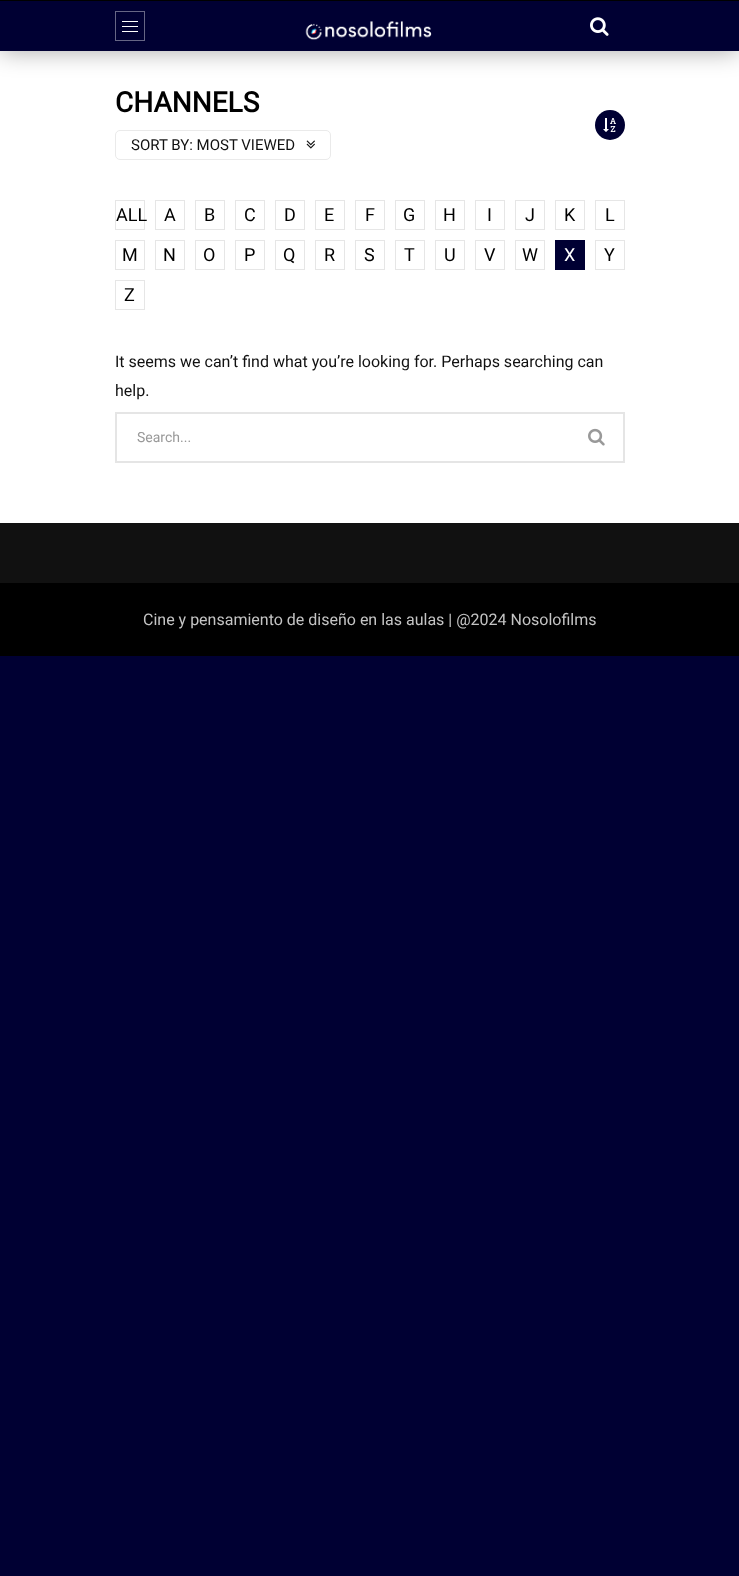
<svg xmlns="http://www.w3.org/2000/svg" width="739" height="1576" viewBox="0 0 739 1576">
  <rect width="100%" height="100%" fill="rgb(0,0,51)"/>
  <rect x="0" y="51" width="739" height="472" fill="rgb(255,255,255)"/>
  <rect x="0" y="0" width="739" height="1" fill="rgb(0,0,0)"/>
  <rect x="0" y="1" width="739" height="50" fill="rgba(0,0,0,0.35)" filter="blur(12.5px)"/>
  <rect x="0" y="1" width="739" height="50" fill="rgb(0,0,51)"/>
  <rect x="115.5" y="11.5" width="29" height="29" fill="none" stroke="rgb(102,102,133)"/>
  <rect x="122" y="21" width="16" height="1" fill="rgb(255,255,255)"/>
  <rect x="122" y="26" width="16" height="1" fill="rgb(255,255,255)"/>
  <rect x="122" y="31" width="16" height="1" fill="rgb(255,255,255)"/>
  <image x="305" y="21" width="127" height="19" href="pic1.png"/>
  <image x="590" y="17" width="19" height="19" href="pic2.png"/>
  <text x="115" y="112" font-family="Roboto" font-size="28" font-weight="bold" fill="rgb(0,0,0)">CHANNELS</text>
  <rect x="115.5" y="130.5" width="215" height="29" rx="4.5" fill="none" stroke="rgb(234,234,234)"/>
  <text x="131" y="150" font-family="Roboto" font-size="15" fill="rgb(17,17,17)">SORT BY: MOST VIEWED</text>
  <image x="306" y="140" width="9" height="9" href="pic3.png"/>
  <circle cx="610" cy="125" r="15" fill="rgb(0,0,51)"/>
  <image x="603" y="118" width="13" height="14" href="pic4.png"/>
  <rect x="115.5" y="200.5" width="29" height="29" fill="none" stroke="rgb(230,230,230)"/>
  <text x="116" y="221" font-family="Roboto" font-size="18" fill="rgb(0,0,0)">ALL</text>
  <rect x="155.5" y="200.5" width="29" height="29" fill="none" stroke="rgb(230,230,230)"/>
  <text x="164" y="221" font-family="Roboto" font-size="18" fill="rgb(0,0,0)">A</text>
  <rect x="195.5" y="200.5" width="29" height="29" fill="none" stroke="rgb(230,230,230)"/>
  <text x="204" y="221" font-family="Roboto" font-size="18" fill="rgb(0,0,0)">B</text>
  <rect x="235.5" y="200.5" width="29" height="29" fill="none" stroke="rgb(230,230,230)"/>
  <text x="244" y="221" font-family="Roboto" font-size="18" fill="rgb(0,0,0)">C</text>
  <rect x="275.5" y="200.5" width="29" height="29" fill="none" stroke="rgb(230,230,230)"/>
  <text x="284" y="221" font-family="Roboto" font-size="18" fill="rgb(0,0,0)">D</text>
  <rect x="315.5" y="200.5" width="29" height="29" fill="none" stroke="rgb(230,230,230)"/>
  <text x="324" y="221" font-family="Roboto" font-size="18" fill="rgb(0,0,0)">E</text>
  <rect x="355.5" y="200.5" width="29" height="29" fill="none" stroke="rgb(230,230,230)"/>
  <text x="365" y="221" font-family="Roboto" font-size="18" fill="rgb(0,0,0)">F</text>
  <rect x="395.5" y="200.5" width="29" height="29" fill="none" stroke="rgb(230,230,230)"/>
  <text x="403" y="221" font-family="Roboto" font-size="18" fill="rgb(0,0,0)">G</text>
  <rect x="435.5" y="200.5" width="29" height="29" fill="none" stroke="rgb(230,230,230)"/>
  <text x="443" y="221" font-family="Roboto" font-size="18" fill="rgb(0,0,0)">H</text>
  <rect x="475.5" y="200.5" width="29" height="29" fill="none" stroke="rgb(230,230,230)"/>
  <text x="487" y="221" font-family="Roboto" font-size="18" fill="rgb(0,0,0)">I</text>
  <rect x="515.5" y="200.5" width="29" height="29" fill="none" stroke="rgb(230,230,230)"/>
  <text x="525" y="221" font-family="Roboto" font-size="18" fill="rgb(0,0,0)">J</text>
  <rect x="555.5" y="200.5" width="29" height="29" fill="none" stroke="rgb(230,230,230)"/>
  <text x="564" y="221" font-family="Roboto" font-size="18" fill="rgb(0,0,0)">K</text>
  <rect x="595.5" y="200.5" width="29" height="29" fill="none" stroke="rgb(230,230,230)"/>
  <text x="605" y="221" font-family="Roboto" font-size="18" fill="rgb(0,0,0)">L</text>
  <rect x="115.5" y="240.5" width="29" height="29" fill="none" stroke="rgb(230,230,230)"/>
  <text x="122" y="261" font-family="Roboto" font-size="18" fill="rgb(0,0,0)">M</text>
  <rect x="155.5" y="240.5" width="29" height="29" fill="none" stroke="rgb(230,230,230)"/>
  <text x="163" y="261" font-family="Roboto" font-size="18" fill="rgb(0,0,0)">N</text>
  <rect x="195.5" y="240.5" width="29" height="29" fill="none" stroke="rgb(230,230,230)"/>
  <text x="203" y="261" font-family="Roboto" font-size="18" fill="rgb(0,0,0)">O</text>
  <rect x="235.5" y="240.5" width="29" height="29" fill="none" stroke="rgb(230,230,230)"/>
  <text x="244" y="261" font-family="Roboto" font-size="18" fill="rgb(0,0,0)">P</text>
  <rect x="275.5" y="240.5" width="29" height="29" fill="none" stroke="rgb(230,230,230)"/>
  <text x="283" y="261" font-family="Roboto" font-size="18" fill="rgb(0,0,0)">Q</text>
  <rect x="315.5" y="240.5" width="29" height="29" fill="none" stroke="rgb(230,230,230)"/>
  <text x="324" y="261" font-family="Roboto" font-size="18" fill="rgb(0,0,0)">R</text>
  <rect x="355.5" y="240.5" width="29" height="29" fill="none" stroke="rgb(230,230,230)"/>
  <text x="364" y="261" font-family="Roboto" font-size="18" fill="rgb(0,0,0)">S</text>
  <rect x="395.5" y="240.5" width="29" height="29" fill="none" stroke="rgb(230,230,230)"/>
  <text x="404" y="261" font-family="Roboto" font-size="18" fill="rgb(0,0,0)">T</text>
  <rect x="435.5" y="240.5" width="29" height="29" fill="none" stroke="rgb(230,230,230)"/>
  <text x="444" y="261" font-family="Roboto" font-size="18" fill="rgb(0,0,0)">U</text>
  <rect x="475.5" y="240.5" width="29" height="29" fill="none" stroke="rgb(230,230,230)"/>
  <text x="484" y="261" font-family="Roboto" font-size="18" fill="rgb(0,0,0)">V</text>
  <rect x="515.5" y="240.5" width="29" height="29" fill="none" stroke="rgb(230,230,230)"/>
  <text x="522" y="261" font-family="Roboto" font-size="18" fill="rgb(0,0,0)">W</text>
  <rect x="555" y="240" width="30" height="30" fill="rgb(0,0,51)"/>
  <text x="564" y="261" font-family="Roboto" font-size="18" fill="rgb(255,255,255)">X</text>
  <rect x="595.5" y="240.5" width="29" height="29" fill="none" stroke="rgb(230,230,230)"/>
  <text x="604" y="261" font-family="Roboto" font-size="18" fill="rgb(0,0,0)">Y</text>
  <rect x="115.5" y="280.5" width="29" height="29" fill="none" stroke="rgb(230,230,230)"/>
  <text x="124" y="301" font-family="Roboto" font-size="18" fill="rgb(0,0,0)">Z</text>
  <g font-family="Roboto" font-size="16" fill="rgb(17,17,17)">
    <text>
      <tspan x="115" y="367">It seems we can’t find what you’re looking for. Perhaps searching can</tspan>
      <tspan x="115" y="396">help.</tspan>
    </text>
  </g>
  <rect x="116" y="413" width="508" height="49" fill="none" stroke="rgb(229,229,229)" stroke-width="2"/>
  <text x="137" y="442" font-family="Roboto" font-size="14" fill="rgb(153,153,153)">Search...</text>
  <image x="588" y="428" width="17" height="18" href="pic5.png"/>
  <rect x="0" y="523" width="739" height="60" fill="rgb(17,17,17)"/>
  <rect x="0" y="583" width="739" height="73" fill="rgb(0,0,0)"/>
  <text x="143" y="625" font-family="Roboto" font-size="16" fill="rgb(196,196,196)">Cine y pensamiento de diseño en las aulas | @2024 Nosolofilms</text>
</svg>
